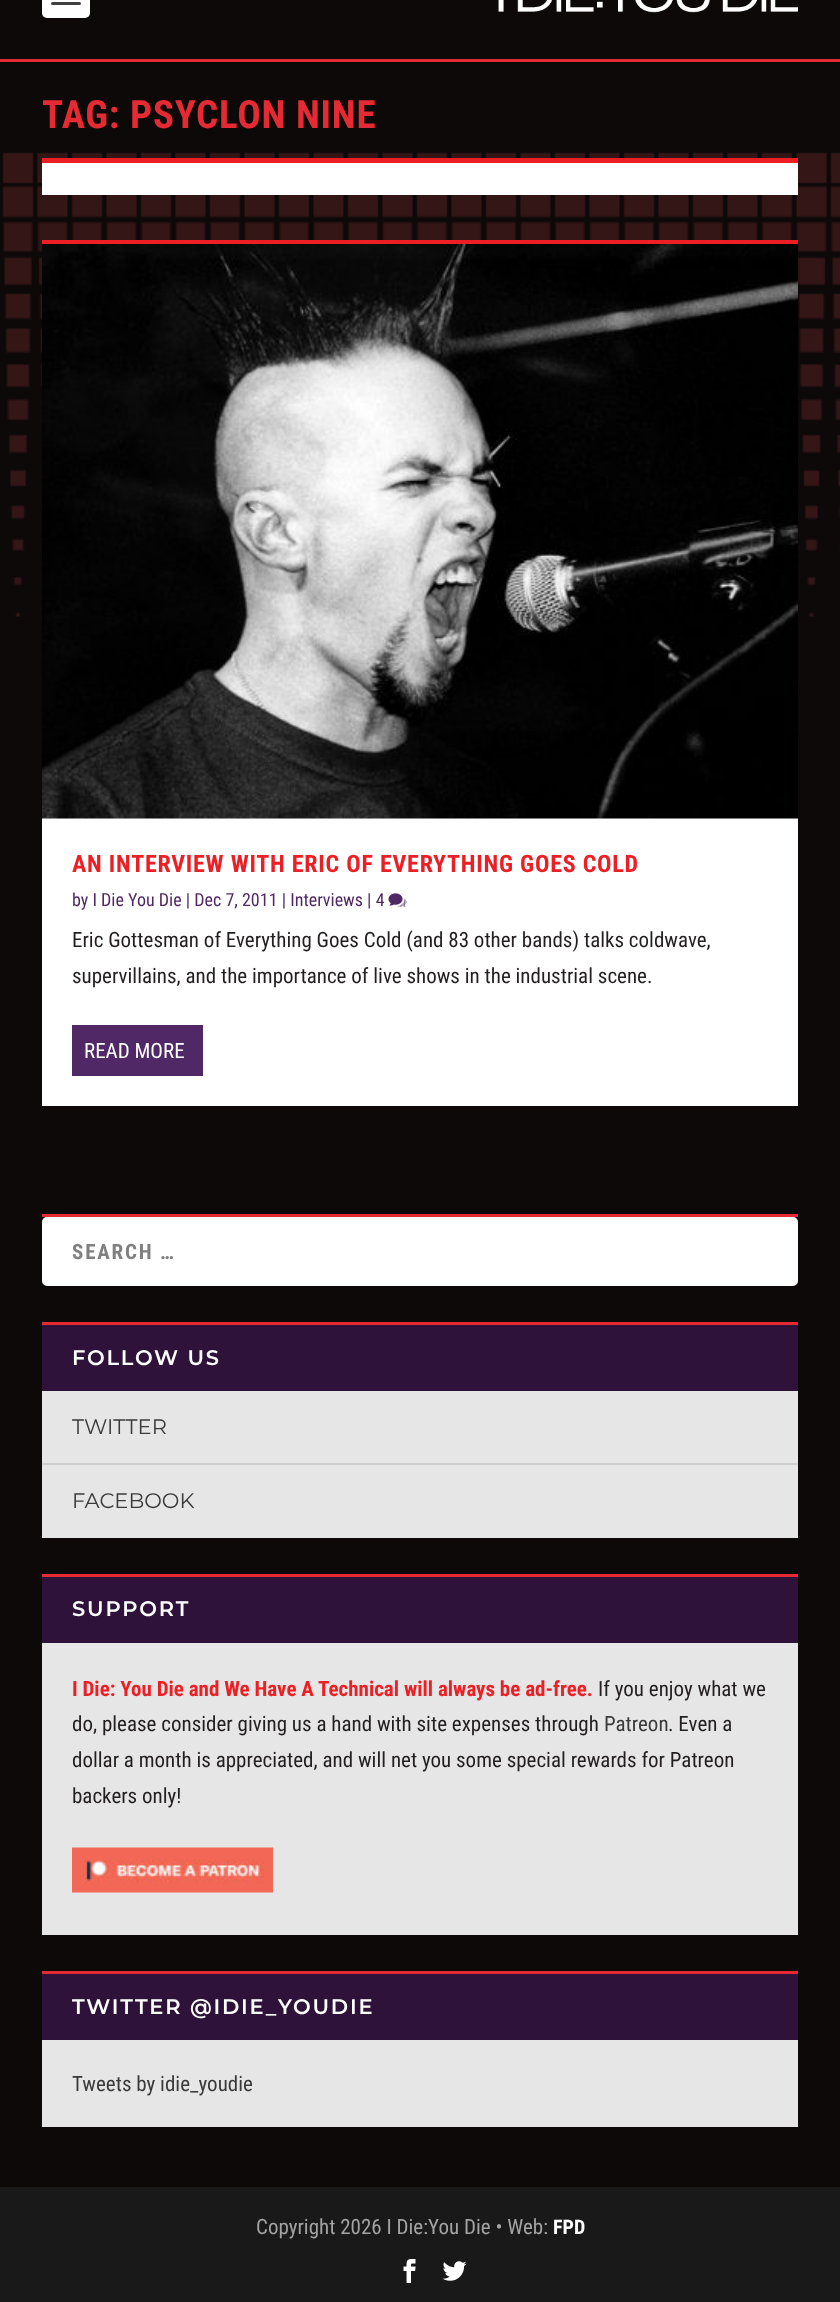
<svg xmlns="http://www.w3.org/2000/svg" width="840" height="2302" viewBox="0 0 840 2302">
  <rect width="100%" height="100%" fill="rgb(14,9,9)"/>
  <image x="2" y="152" width="838" height="465" href="pic1.png"/>
  <rect x="0" y="59" width="840" height="3" fill="rgb(228,42,51)"/>
  <rect x="42" y="-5" width="48" height="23" rx="5" fill="rgb(255,255,255)"/>
  <rect x="51" y="2" width="30" height="3" rx="1.5" fill="rgb(64,64,64)"/>
  <image x="498" y="0" width="300" height="13" href="pic2.png"/>
  <text x="42" y="128" font-family="Roboto Condensed" font-size="39" font-weight="bold" letter-spacing="0.75" fill="rgb(228,42,51)">TAG: PSYCLON NINE</text>
  <rect x="42" y="163" width="756" height="32" fill="rgb(255,255,255)"/>
  <rect x="42" y="158" width="756" height="5" fill="rgb(236,31,36)"/>
  <rect x="42" y="818" width="756" height="288" fill="rgb(255,255,255)"/>
  <rect x="42" y="240" width="756" height="4" fill="rgb(236,31,36)"/>
  <image x="42" y="244" width="756" height="575" href="pic3.png"/>
  <text x="72" y="872" font-family="Roboto Condensed" font-size="24" font-weight="bold" letter-spacing="0.75" fill="rgb(236,31,36)">AN INTERVIEW WITH ERIC OF EVERYTHING GOES COLD</text>
  <text x="72" y="906" font-family="Roboto Condensed" font-size="18" fill="rgb(81,40,102)">by I Die You Die | Dec 7, 2011 | Interviews | 4</text>
  <image x="388" y="893" width="19" height="14" href="pic4.png"/>
  <g font-family="Roboto Condensed" font-size="21" fill="rgb(35,31,32)">
    <text>
      <tspan x="72" y="947">Eric Gottesman of Everything Goes Cold (and 83 other bands) talks coldwave,</tspan>
      <tspan x="72" y="983">supervillains, and the importance of live shows in the industrial scene.</tspan>
    </text>
  </g>
  <rect x="72" y="1025" width="131" height="51" fill="rgb(81,40,102)"/>
  <text x="84" y="1058" font-family="Roboto Condensed" font-size="21" fill="rgb(255,255,255)">READ MORE</text>
  <rect x="42" y="1214" width="756" height="3" fill="rgb(228,42,51)"/>
  <rect x="42" y="1217" width="756" height="69" rx="5" fill="rgb(255,255,255)"/>
  <text x="72" y="1259" font-family="Roboto Condensed" font-size="21" font-weight="bold" letter-spacing="1.8" fill="rgb(128,128,128)">SEARCH …</text>
  <rect x="42" y="1391" width="756" height="147" fill="rgb(230,230,230)"/>
  <rect x="42" y="1322" width="756" height="3" fill="rgb(228,42,51)"/>
  <rect x="42" y="1325" width="756" height="66" fill="rgb(46,18,58)"/>
  <text x="72" y="1365" font-family="Montserrat" font-size="21" font-weight="100" letter-spacing="1.8" fill="rgb(255,255,255)">FOLLOW US</text>
  <rect x="42" y="1463" width="756" height="2" fill="rgb(207,207,207)"/>
  <g font-family="'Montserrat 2'" font-size="21" font-weight="100" fill="rgb(58,58,58)">
    <text x="72" y="1434">TWITTER</text>
    <text x="72" y="1508">FACEBOOK</text>
  </g>
  <rect x="42" y="1643" width="756" height="292" fill="rgb(230,230,230)"/>
  <rect x="42" y="1574" width="756" height="3" fill="rgb(228,42,51)"/>
  <rect x="42" y="1577" width="756" height="66" fill="rgb(46,18,58)"/>
  <text x="72" y="1616" font-family="Montserrat" font-size="21" font-weight="100" letter-spacing="1.8" fill="rgb(255,255,255)">SUPPORT</text>
  <text x="72" y="1696" font-family="Roboto Condensed" font-size="21" font-weight="bold" fill="rgb(236,31,36)">I Die: You Die and We Have A Technical will always be ad-free.</text>
  <g font-family="Roboto Condensed" font-size="21" fill="rgb(35,31,32)">
    <text x="598" y="1696">If you enjoy what we</text>
    <text x="72" y="1731">do, please consider giving us a hand with site expenses through</text>
  </g>
  <text x="604" y="1731" font-family="Roboto Condensed" font-size="21" fill="rgb(58,58,58)">Patreon</text>
  <g font-family="Roboto Condensed" font-size="21" fill="rgb(35,31,32)">
    <text x="668" y="1731">. Even a</text>
    <text>
      <tspan x="72" y="1767">dollar a month is appreciated, and will net you some special rewards for Patreon</tspan>
      <tspan x="72" y="1803">backers only!</tspan>
    </text>
  </g>
  <image x="72" y="1847" width="201" height="46" href="pic5.png"/>
  <rect x="42" y="2040" width="756" height="87" fill="rgb(230,230,230)"/>
  <rect x="42" y="1971" width="756" height="3" fill="rgb(228,42,51)"/>
  <rect x="42" y="1974" width="756" height="66" fill="rgb(46,18,58)"/>
  <text x="72" y="2014" font-family="Montserrat" font-size="21" font-weight="100" letter-spacing="1.8" fill="rgb(255,255,255)">TWITTER @IDIE_YOUDIE</text>
  <text x="72" y="2091" font-family="Roboto Condensed" font-size="21" fill="rgb(58,58,58)">Tweets by idie_youdie</text>
  <rect x="0" y="2187" width="840" height="115" fill="rgb(25,25,25)"/>
  <text x="256" y="2234" font-family="Roboto Condensed" font-size="21" fill="rgb(163,163,163)">Copyright 2026 I Die:You Die • Web:</text>
  <text x="553" y="2234" font-family="Roboto Condensed" font-size="20" font-weight="bold" fill="rgb(255,255,255)">FPD</text>
  <image x="403" y="2259" width="13" height="24" href="pic6.png"/>
  <image x="442" y="2261" width="25" height="20" href="pic7.png"/>
</svg>
